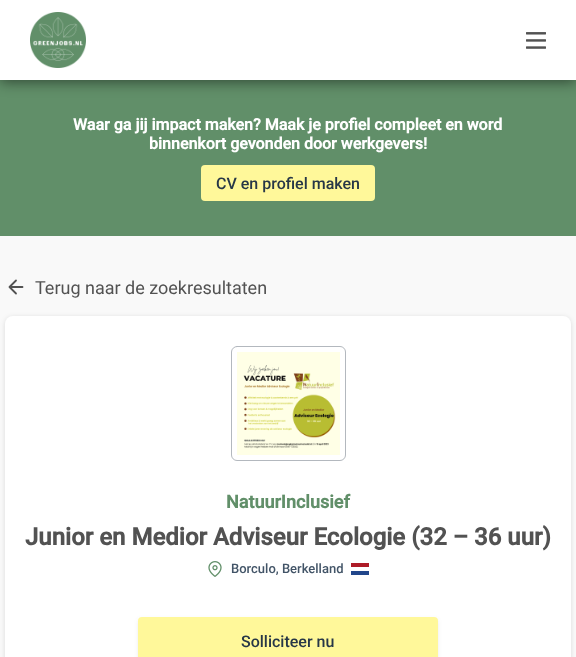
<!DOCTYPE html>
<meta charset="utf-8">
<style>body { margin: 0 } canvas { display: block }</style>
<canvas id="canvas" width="576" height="657"></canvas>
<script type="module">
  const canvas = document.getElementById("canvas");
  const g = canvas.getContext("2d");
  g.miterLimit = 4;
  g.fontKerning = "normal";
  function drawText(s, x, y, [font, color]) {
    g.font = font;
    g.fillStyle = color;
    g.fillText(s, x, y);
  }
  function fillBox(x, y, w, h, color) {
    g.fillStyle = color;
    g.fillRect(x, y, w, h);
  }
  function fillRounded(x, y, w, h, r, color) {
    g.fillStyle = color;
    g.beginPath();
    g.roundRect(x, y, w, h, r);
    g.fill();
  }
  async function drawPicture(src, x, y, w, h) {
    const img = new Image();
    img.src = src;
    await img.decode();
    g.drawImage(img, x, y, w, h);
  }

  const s1 = ["bold 16px Roboto", "#FFFFFF"];
  const s2 = ["500 16px Roboto", "#273747"];
  const s3 = ["18px Roboto", "#525252"];
  const s4 = ["bold 18px Roboto", "#618F69"];
  const s5 = ["bold 24px Roboto", "#525252"];
  const s6 = ["500 13px Roboto", "#425467"];

  fillBox(0, 0, 576, 657, "#618F69");
  g.fillStyle = "rgba(0, 0, 0, 0.5)";
  g.filter = "blur(7px)";
  g.beginPath();
  g.rect(0, 2, 576, 80);
  g.fill();
  g.filter = "none";
  fillBox(0, 0, 576, 80, "#FFFFFF");
  await drawPicture("pic1.png", 30, 12, 56, 56);
  await drawPicture("pic2.png", 526, 32, 20, 17);
  drawText("Waar ga jij impact maken? Maak je profiel compleet en word", 73, 130, s1);
  drawText("binnenkort gevonden door werkgevers!", 149, 149, s1);
  fillRounded(201, 165, 174, 36, 4, "#FFF89A");
  drawText("CV en profiel maken", 216, 189, s2);
  fillBox(0, 236, 576, 421, "#F9F9F9");
  g.beginPath();
  g.moveTo(22.5, 287);
  g.lineTo(9.5, 287);
  g.moveTo(16, 293.5);
  g.lineTo(9.5, 287);
  g.lineTo(16, 280.5);
  g.strokeStyle = "#525252";
  g.lineWidth = 1.8;
  g.lineCap = "round";
  g.lineJoin = "round";
  g.stroke();
  drawText("Terug naar de zoekresultaten", 35, 294, s3);
  g.fillStyle = "rgba(0, 0, 0, 0.12)";
  g.filter = "blur(2.5px)";
  g.beginPath();
  g.roundRect(5, 317, 566, 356, 8);
  g.fill();
  g.filter = "none";
  fillRounded(5, 316, 566, 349, 8, "#FFFFFF");
  g.beginPath();
  g.roundRect(231.5, 346.5, 114, 114, 5.5);
  g.strokeStyle = "#B3B8BE";
  g.lineWidth = 1;
  g.lineJoin = "miter";
  g.stroke();
  await drawPicture("pic3.png", 237, 352, 103, 103);
  drawText("NatuurInclusief", 226, 508, s4);
  drawText("Junior en Medior Adviseur Ecologie (32 – 36 uur)", 25, 545, s5);
  await drawPicture("pic4.png", 208, 561, 14, 16);
  drawText("Borculo, Berkelland", 231, 573, s6);
  fillBox(351, 571, 18, 4, "#21468B");
  fillBox(351, 563, 18, 4, "#AE1C28");
  g.fillStyle = "rgba(82, 82, 82, 0.1)";
  g.filter = "blur(2px)";
  g.beginPath();
  g.roundRect(138, 619, 300, 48, 4);
  g.fill();
  g.filter = "none";
  fillRounded(138, 617, 300, 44, 4, "#FFF89A");
  drawText("Solliciteer nu", 241, 647, s2);
</script>
